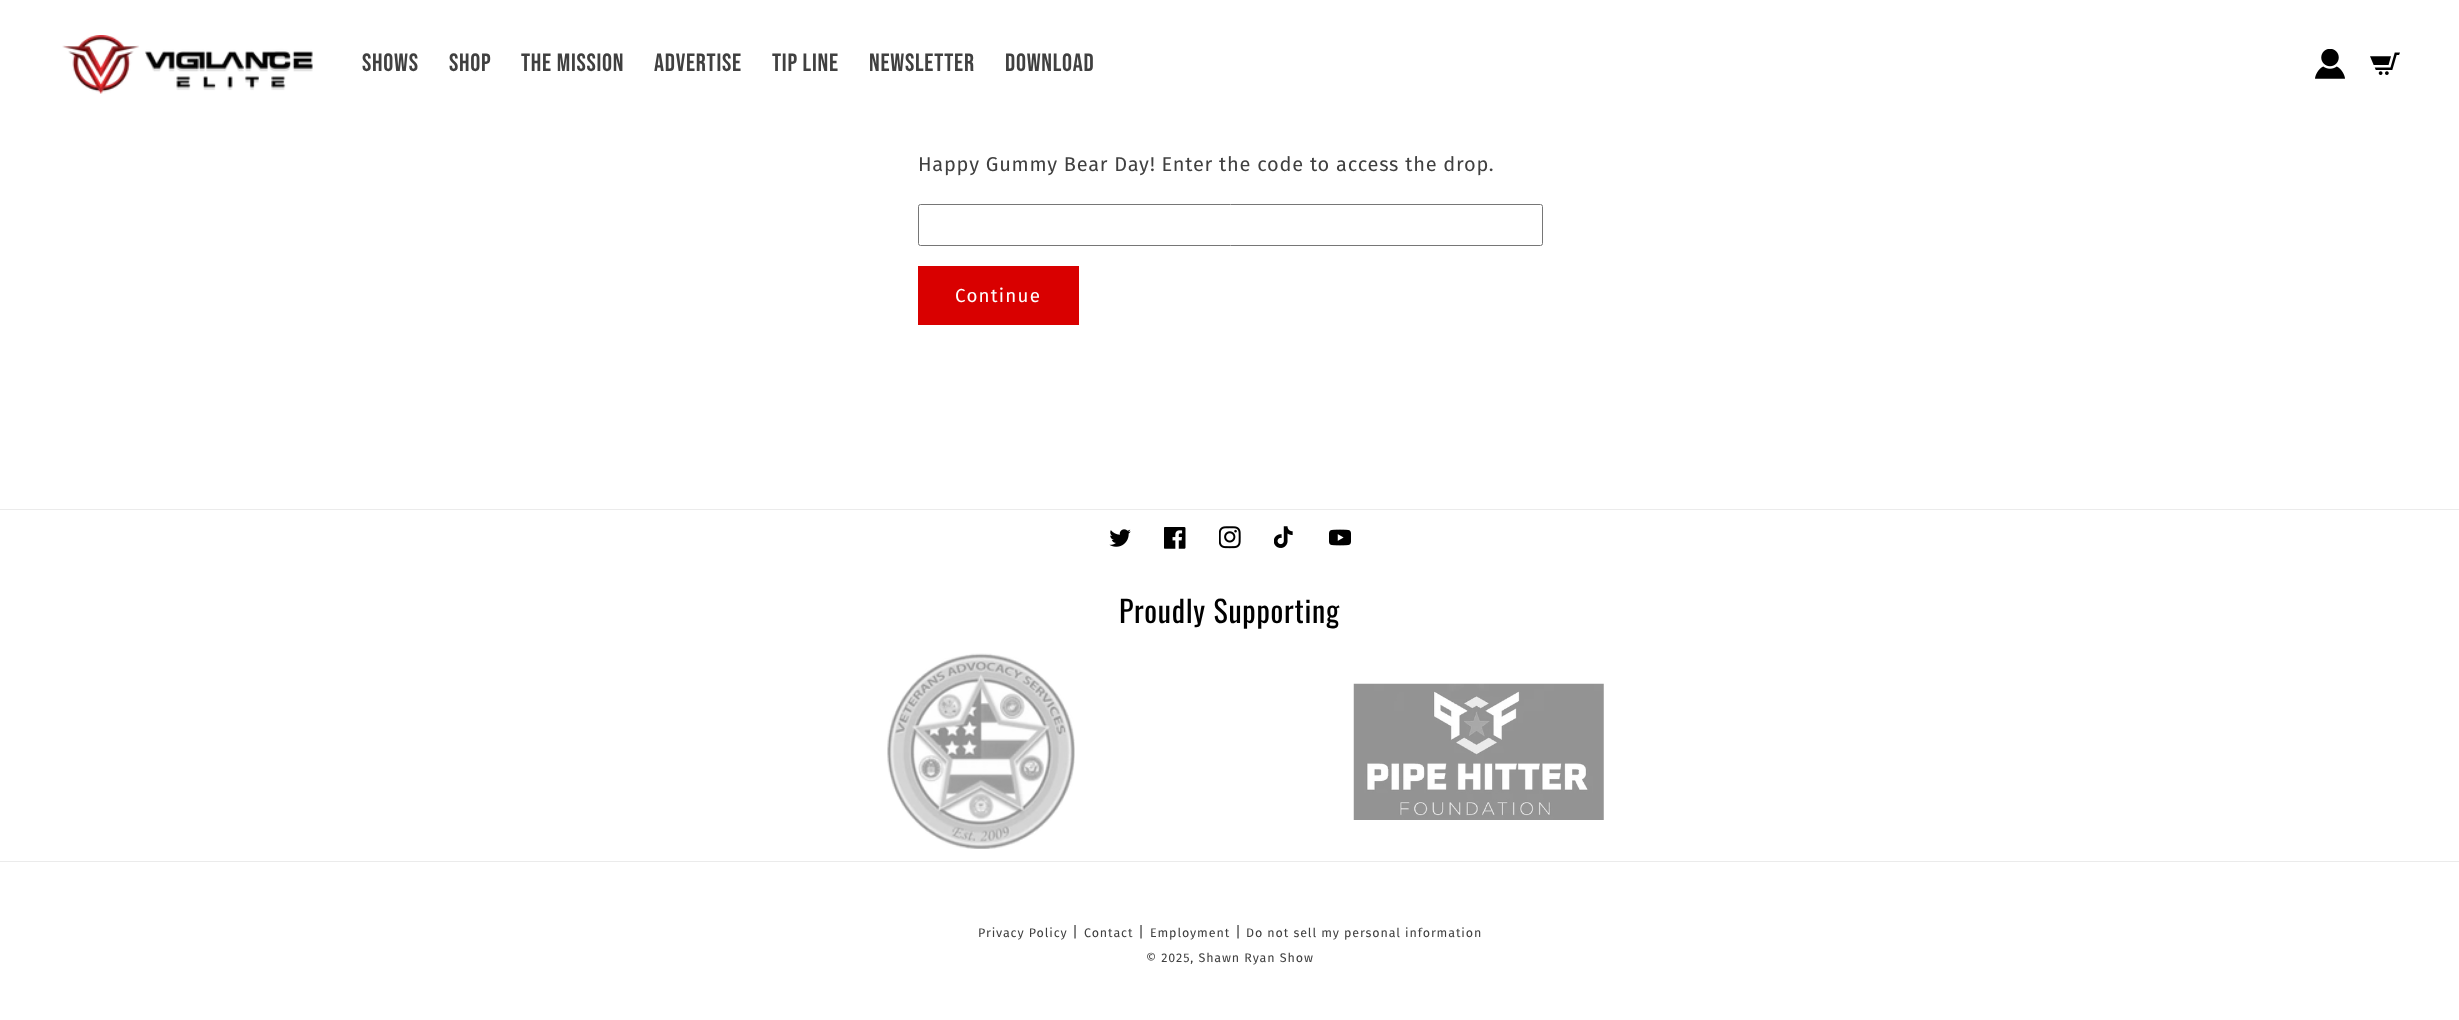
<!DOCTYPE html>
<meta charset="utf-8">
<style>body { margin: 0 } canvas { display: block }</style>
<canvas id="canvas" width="2459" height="1020"></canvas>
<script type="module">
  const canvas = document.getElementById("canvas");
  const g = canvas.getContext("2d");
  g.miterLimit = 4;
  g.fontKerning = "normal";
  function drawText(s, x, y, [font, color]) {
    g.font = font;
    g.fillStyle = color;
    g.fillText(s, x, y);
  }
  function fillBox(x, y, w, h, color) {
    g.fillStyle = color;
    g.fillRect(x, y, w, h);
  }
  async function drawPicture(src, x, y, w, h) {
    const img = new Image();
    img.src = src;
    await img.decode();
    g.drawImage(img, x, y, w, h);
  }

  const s1 = ["25px Bebas Neue", "#404040"];
  const s2 = ["20px Fira Sans", "#404040"];
  const s3 = ["18.75px Fira Sans", "#FFFFFF"];
  const s4 = ["30px Oswald", "#000000"];
  const s5 = ["12.5px Fira Sans", "#404040"];
  const s6 = ["15px Fira Sans", "#404040"];

  fillBox(0, 0, 2459, 1020, "#FFFFFF");
  await drawPicture("pic1.png", 62, 35, 251, 59);
  g.letterSpacing = "0.75px";
  drawText("SHOWS", 362, 71, s1);
  drawText("SHOP", 449, 71, s1);
  drawText("THE MISSION", 521, 71, s1);
  drawText("ADVERTISE", 654, 71, s1);
  drawText("TIP LINE", 772, 71, s1);
  drawText("NEWSLETTER", 869, 71, s1);
  drawText("DOWNLOAD", 1005, 71, s1);
  await drawPicture("pic2.png", 2315, 49, 30, 30);
  await drawPicture("pic3.png", 2370, 52, 30, 23);
  drawText("Happy Gummy Bear Day! Enter the code to access the drop.", 918, 171, s2);
  g.beginPath();
  g.roundRect(918.5, 204.5, 624, 41, 2);
  g.strokeStyle = "#767676";
  g.stroke();
  fillBox(918, 266, 161, 59, "#D90000");
  g.letterSpacing = "1.25px";
  drawText("Continue", 955, 302, s3);
  fillBox(0, 509, 2459, 1, "#EBEBEB");
  await drawPicture("pic4.png", 1109, 529, 22, 18);
  await drawPicture("pic5.png", 1164, 527, 22, 22);
  await drawPicture("pic6.png", 1219, 526, 22, 23);
  await drawPicture("pic7.png", 1274, 526, 19, 22);
  await drawPicture("pic8.png", 1329, 529, 22, 17);
  g.letterSpacing = "0.75px";
  drawText("Proudly Supporting", 1119, 623, s4);
  await drawPicture("pic9.png", 887, 653, 188, 196);
  await drawPicture("pic10.png", 1353, 683, 251, 137);
  fillBox(0, 861, 2459, 1, "#EBEBEB");
  g.letterSpacing = "0.9px";
  drawText("Privacy Policy", 978, 937, s5);
  drawText("|", 1072, 937, s6);
  drawText("Contact", 1084, 937, s5);
  drawText("|", 1138, 937, s6);
  drawText("Employment", 1150, 937, s5);
  drawText("|", 1235, 937, s6);
  drawText("Do not sell my personal information", 1246, 937, s5);
  drawText("© 2025, Shawn Ryan Show", 1146, 962, s5);
</script>
